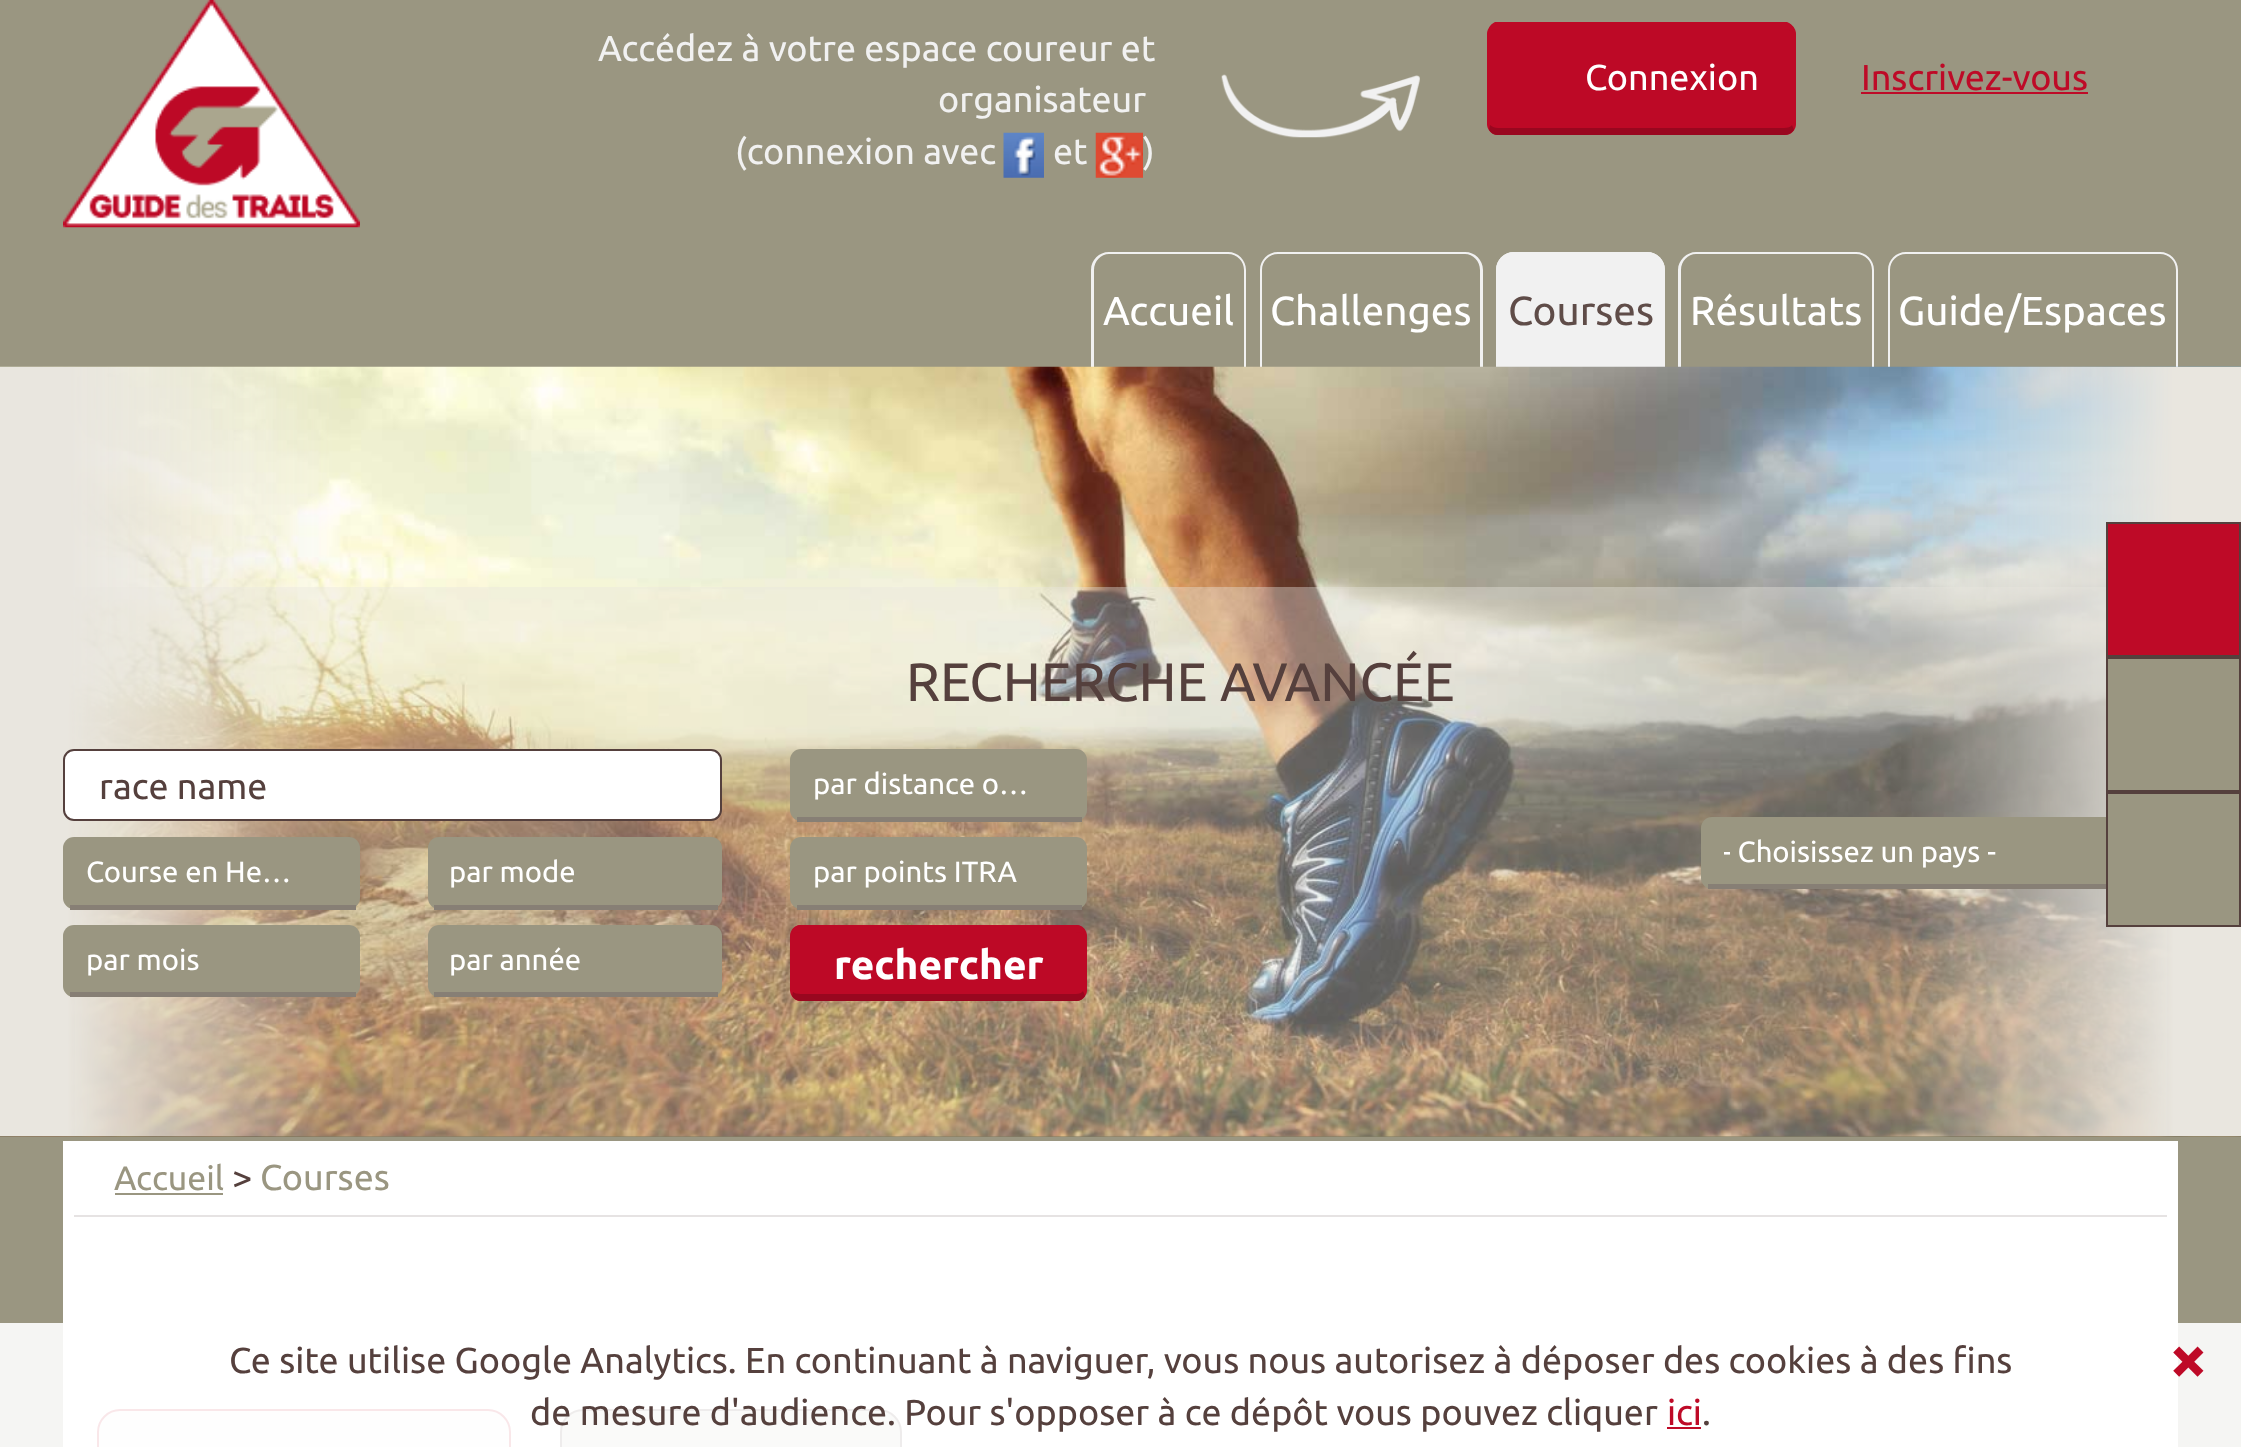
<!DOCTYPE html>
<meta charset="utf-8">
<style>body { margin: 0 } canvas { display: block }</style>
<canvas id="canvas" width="2241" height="1447"></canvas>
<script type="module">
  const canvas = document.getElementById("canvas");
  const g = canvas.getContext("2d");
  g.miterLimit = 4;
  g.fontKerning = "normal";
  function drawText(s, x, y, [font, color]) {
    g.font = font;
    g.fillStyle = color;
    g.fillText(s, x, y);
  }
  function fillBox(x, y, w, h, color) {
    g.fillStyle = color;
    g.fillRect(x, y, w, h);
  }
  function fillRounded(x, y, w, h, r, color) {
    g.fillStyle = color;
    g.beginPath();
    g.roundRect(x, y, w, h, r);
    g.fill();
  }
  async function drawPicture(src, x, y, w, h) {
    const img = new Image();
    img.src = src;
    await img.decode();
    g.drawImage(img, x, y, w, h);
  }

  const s1 = ["36px Ubuntu", "#F1F1F1"];
  const s2 = ["36px Ubuntu", "#FFFFFF"];
  const s3 = ["36px Ubuntu", "#BE0A27"];
  const s4 = ["40.5px Ubuntu", "#FFFFFF"];
  const s5 = ["40.5px Ubuntu", "#5F4C48"];
  const s6 = ["54px Ubuntu", "#55403D"];
  const s7 = ["36px Ubuntu", "#55403D"];
  const s8 = ["29.25px Ubuntu", "#FFFFFF"];
  const s9 = ["bold 40.5px Ubuntu", "#FFFFFF"];
  const s10 = ["34px Ubuntu", "#9A9681"];
  const s11 = ["36px Ubuntu", "#9A9681"];
  const s12 = ["bold 68px Ubuntu", "#BE0A27"];

  fillBox(0, 0, 2241, 1447, "#9A9681");
  await drawPicture("pic1.png", 63, 0, 297, 228);
  drawText("Accédez à votre espace coureur et", 598, 61, s1);
  drawText("organisateur", 938, 112, s1);
  drawText("(connexion avec", 735, 164, s1);
  await drawPicture("pic2.png", 1003, 132, 41, 46);
  drawText("et", 1053, 164, s1);
  await drawPicture("pic3.png", 1095, 132, 48, 46);
  drawText(")", 1143, 164, s1);
  await drawPicture("pic4.png", 1221, 74, 199, 64);
  fillRounded(1487, 23, 309, 112, 11, "#BD0926");
  g.beginPath();
  g.moveTo(1498, 29);
  g.bezierCurveTo(1495, 29, 1492, 30, 1490, 32);
  g.lineTo(1489, 28);
  g.bezierCurveTo(1490, 25, 1493, 23, 1495, 22);
  g.lineTo(1787, 22);
  g.bezierCurveTo(1790, 23, 1792, 25, 1794, 28);
  g.lineTo(1792, 32);
  g.bezierCurveTo(1791, 30, 1788, 29, 1784, 29);
  g.closePath();
  g.fill();
  g.fillStyle = "#99071F";
  g.beginPath();
  g.moveTo(1498, 135);
  g.lineTo(1784, 135);
  g.bezierCurveTo(1788, 135, 1792, 133, 1794, 130);
  g.lineTo(1792, 125);
  g.bezierCurveTo(1791, 127, 1788, 128, 1784, 128);
  g.lineTo(1498, 128);
  g.bezierCurveTo(1495, 128, 1492, 127, 1490, 125);
  g.lineTo(1489, 130);
  g.bezierCurveTo(1491, 133, 1494, 135, 1498, 135);
  g.closePath();
  g.fill();
  drawText("Connexion", 1585, 90, s2);
  drawText("Inscrivez-vous", 1861, 90, s3);
  fillBox(1861, 92, 227, 2, "#BE0A27");
  g.fillStyle = "#F1F1F1";
  g.beginPath();
  g.moveTo(1109, 252);
  g.lineTo(1228, 252);
  g.bezierCurveTo(1238, 252, 1246, 260, 1246, 270);
  g.lineTo(1246, 367);
  g.lineTo(1091, 367);
  g.lineTo(1091, 270);
  g.bezierCurveTo(1091, 260, 1099, 252, 1109, 252);
  g.closePath();
  g.moveTo(1109, 254);
  g.lineTo(1228, 254);
  g.bezierCurveTo(1237, 254, 1244, 261, 1244, 270);
  g.lineTo(1244, 367);
  g.lineTo(1094, 367);
  g.lineTo(1094, 270);
  g.bezierCurveTo(1094, 261, 1101, 254, 1109, 254);
  g.closePath();
  g.fill("evenodd");
  drawText("Accueil", 1103, 325, s4);
  g.fillStyle = "#F1F1F1";
  g.beginPath();
  g.moveTo(1278, 252);
  g.lineTo(1465, 252);
  g.bezierCurveTo(1475, 252, 1483, 260, 1483, 270);
  g.lineTo(1483, 367);
  g.lineTo(1260, 367);
  g.lineTo(1260, 270);
  g.bezierCurveTo(1260, 260, 1268, 252, 1278, 252);
  g.closePath();
  g.moveTo(1278, 254);
  g.lineTo(1465, 254);
  g.bezierCurveTo(1473, 254, 1480, 261, 1480, 270);
  g.lineTo(1480, 367);
  g.lineTo(1262, 367);
  g.lineTo(1262, 270);
  g.bezierCurveTo(1262, 261, 1269, 254, 1278, 254);
  g.closePath();
  g.fill("evenodd");
  drawText("Challenges", 1270, 325, s4);
  g.fillStyle = "#F1F1F1";
  g.beginPath();
  g.roundRect(1496, 252, 169, 115, [18, 18, 0, 0]);
  g.fill();
  g.beginPath();
  g.moveTo(1514, 252);
  g.lineTo(1647, 252);
  g.bezierCurveTo(1657, 252, 1665, 260, 1665, 270);
  g.lineTo(1665, 367);
  g.lineTo(1496, 367);
  g.lineTo(1496, 270);
  g.bezierCurveTo(1496, 260, 1504, 252, 1514, 252);
  g.closePath();
  g.moveTo(1514, 254);
  g.lineTo(1647, 254);
  g.bezierCurveTo(1656, 254, 1663, 261, 1663, 270);
  g.lineTo(1663, 367);
  g.lineTo(1498, 367);
  g.lineTo(1498, 270);
  g.bezierCurveTo(1498, 261, 1506, 254, 1514, 254);
  g.closePath();
  g.fill("evenodd");
  drawText("Courses", 1508, 325, s5);
  g.fillStyle = "#F1F1F1";
  g.beginPath();
  g.moveTo(1696, 252);
  g.lineTo(1856, 252);
  g.bezierCurveTo(1866, 252, 1874, 260, 1874, 270);
  g.lineTo(1874, 367);
  g.lineTo(1678, 367);
  g.lineTo(1678, 270);
  g.bezierCurveTo(1678, 260, 1687, 252, 1696, 252);
  g.closePath();
  g.moveTo(1696, 254);
  g.lineTo(1856, 254);
  g.bezierCurveTo(1865, 254, 1872, 261, 1872, 270);
  g.lineTo(1872, 367);
  g.lineTo(1681, 367);
  g.lineTo(1681, 270);
  g.bezierCurveTo(1681, 261, 1688, 254, 1696, 254);
  g.closePath();
  g.fill("evenodd");
  drawText("Résultats", 1690, 325, s4);
  g.fillStyle = "#F1F1F1";
  g.beginPath();
  g.moveTo(1906, 252);
  g.lineTo(2160, 252);
  g.bezierCurveTo(2170, 252, 2178, 260, 2178, 270);
  g.lineTo(2178, 367);
  g.lineTo(1888, 367);
  g.lineTo(1888, 270);
  g.bezierCurveTo(1888, 260, 1896, 252, 1906, 252);
  g.closePath();
  g.moveTo(1906, 254);
  g.lineTo(2160, 254);
  g.bezierCurveTo(2169, 254, 2176, 261, 2176, 270);
  g.lineTo(2176, 367);
  g.lineTo(1890, 367);
  g.lineTo(1890, 270);
  g.bezierCurveTo(1890, 261, 1897, 254, 1906, 254);
  g.closePath();
  g.fill("evenodd");
  drawText("Guide/Espaces", 1898, 325, s4);
  await drawPicture("pic5.png", 0, 366, 2241, 771);
  fillBox(75, 587, 2092, 549, "rgba(233, 230, 223, 0.4)");
  drawText("RECHERCHE AVANCÉE", 906, 701, s6);
  g.fillStyle = "#FFFFFF";
  g.beginPath();
  g.roundRect(64, 750, 657, 70, 10);
  g.fill();
  g.strokeStyle = "#55403D";
  g.lineWidth = 2;
  g.stroke();
  drawText("race name", 99, 799, s7);
  fillRounded(790, 749, 297, 72, 11, "#9A9681");
  fillBox(797, 817, 285, 5, "#877F75");
  drawText("par distance o…", 813, 794, s8);
  fillRounded(63, 837, 297, 72, 11, "#9A9681");
  fillBox(70, 905, 286, 5, "#877F75");
  drawText("Course en He…", 86, 882, s8);
  fillRounded(428, 837, 294, 72, 11, "#9A9681");
  fillBox(434, 905, 284, 5, "#877F75");
  drawText("par mode", 449, 882, s8);
  fillRounded(790, 837, 297, 72, 11, "#9A9681");
  fillBox(797, 905, 285, 5, "#877F75");
  drawText("par points ITRA", 813, 882, s8);
  fillRounded(63, 925, 297, 72, 11, "#9A9681");
  fillBox(70, 992, 286, 5, "#877F75");
  drawText("par mois", 86, 970, s8);
  fillRounded(428, 925, 294, 72, 11, "#9A9681");
  fillBox(434, 992, 284, 5, "#877F75");
  drawText("par année", 449, 970, s8);
  fillRounded(790, 925, 297, 76, 11, "#BD0926");
  g.beginPath();
  g.moveTo(801, 925);
  g.bezierCurveTo(797, 925, 794, 927, 792, 930);
  g.lineTo(793, 934);
  g.bezierCurveTo(794, 933, 797, 932, 801, 932);
  g.lineTo(1076, 932);
  g.bezierCurveTo(1079, 932, 1082, 933, 1083, 935);
  g.lineTo(1085, 930);
  g.bezierCurveTo(1083, 927, 1080, 925, 1076, 925);
  g.closePath();
  g.fill();
  g.fillStyle = "#99071F";
  g.beginPath();
  g.moveTo(1085, 996);
  g.bezierCurveTo(1083, 999, 1080, 1001, 1076, 1001);
  g.lineTo(801, 1001);
  g.bezierCurveTo(797, 1001, 794, 999, 792, 996);
  g.lineTo(793, 992);
  g.bezierCurveTo(794, 993, 797, 994, 801, 994);
  g.lineTo(1076, 994);
  g.bezierCurveTo(1079, 994, 1082, 993, 1083, 991);
  g.closePath();
  g.fill();
  drawText("rechercher", 834, 979, s9);
  fillRounded(1701, 817, 477, 72, 11, "#9A9681");
  fillBox(1708, 884, 398, 5, "#877F75");
  g.save();
  g.beginPath();
  g.rect(1724, 817, 396, 67);
  g.clip();
  drawText("- Choisissez un pays -", 1722, 862, s8);
  g.restore();
  fillBox(63, 1141, 2115, 306, "#FFFFFF");
  g.fillStyle = "#BE0A27";
  g.beginPath();
  g.rect(2107, 523, 133, 133);
  g.fill();
  g.stroke();
  g.fillStyle = "#9A9681";
  g.beginPath();
  g.rect(2107, 658, 133, 133);
  g.fill();
  g.stroke();
  g.beginPath();
  g.rect(2107, 793, 133, 133);
  g.fill();
  g.stroke();
  g.fillStyle = "#F1F1F1";
  g.beginPath();
  g.moveTo(120, 1410);
  g.lineTo(488, 1410);
  g.bezierCurveTo(500, 1410, 510, 1420, 510, 1432);
  g.lineTo(510, 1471);
  g.lineTo(98, 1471);
  g.lineTo(98, 1432);
  g.bezierCurveTo(98, 1420, 108, 1410, 120, 1410);
  g.closePath();
  g.fill();
  g.strokeStyle = "#BE0A27";
  g.stroke();
  g.fillStyle = "#C6C5BD";
  g.beginPath();
  g.moveTo(583, 1410);
  g.lineTo(879, 1410);
  g.bezierCurveTo(891, 1410, 901, 1420, 901, 1432);
  g.lineTo(901, 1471);
  g.lineTo(561, 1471);
  g.lineTo(561, 1432);
  g.bezierCurveTo(561, 1420, 571, 1410, 583, 1410);
  g.closePath();
  g.fill();
  g.strokeStyle = "#55403D";
  g.stroke();
  fillBox(74, 1215, 2093, 2, "#E6E3E3");
  drawText("Accueil", 114, 1190, s10);
  fillBox(115, 1193, 108, 2, "#9A9681");
  drawText(">", 232, 1190, s7);
  drawText("Courses", 260, 1190, s11);
  fillBox(0, 1323, 2241, 124, "rgba(255, 255, 255, 0.9)");
  drawText("Ce site utilise Google Analytics. En continuant à naviguer, vous nous autorisez à déposer des cookies à des fins", 229, 1373, s7);
  drawText("de mesure d'audience. Pour s'opposer à ce dépôt vous pouvez cliquer", 530, 1425, s7);
  drawText("ici", 1667, 1425, s3);
  fillBox(1667, 1427, 34, 2, "#BE0A27");
  drawText(".", 1702, 1425, s7);
  drawText("×", 2169, 1382, s12);
</script>
